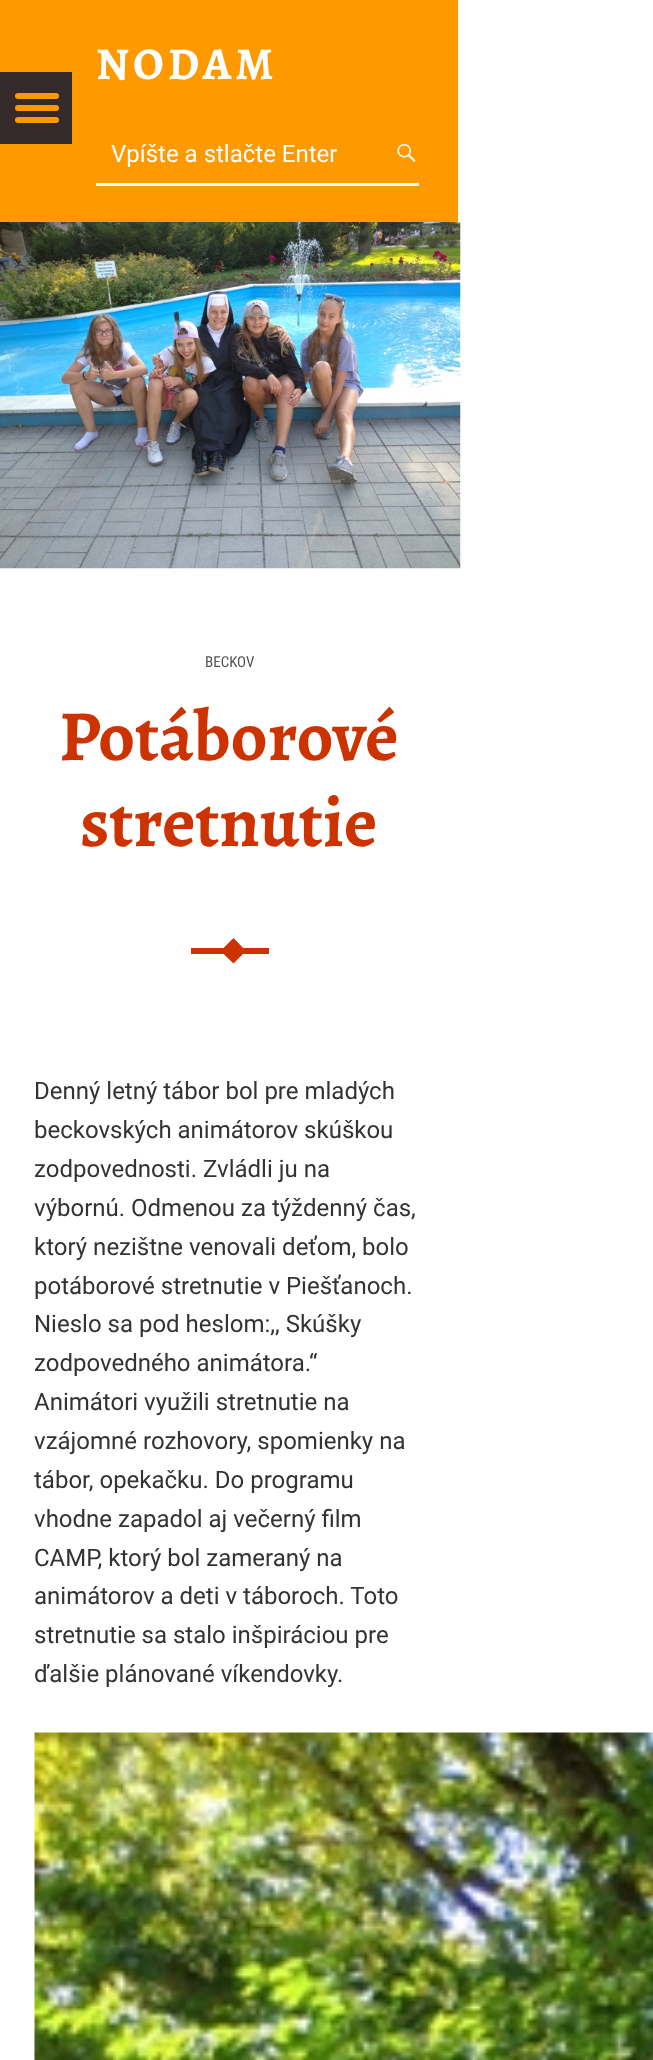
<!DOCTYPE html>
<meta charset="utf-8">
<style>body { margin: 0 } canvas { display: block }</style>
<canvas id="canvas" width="653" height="2060"></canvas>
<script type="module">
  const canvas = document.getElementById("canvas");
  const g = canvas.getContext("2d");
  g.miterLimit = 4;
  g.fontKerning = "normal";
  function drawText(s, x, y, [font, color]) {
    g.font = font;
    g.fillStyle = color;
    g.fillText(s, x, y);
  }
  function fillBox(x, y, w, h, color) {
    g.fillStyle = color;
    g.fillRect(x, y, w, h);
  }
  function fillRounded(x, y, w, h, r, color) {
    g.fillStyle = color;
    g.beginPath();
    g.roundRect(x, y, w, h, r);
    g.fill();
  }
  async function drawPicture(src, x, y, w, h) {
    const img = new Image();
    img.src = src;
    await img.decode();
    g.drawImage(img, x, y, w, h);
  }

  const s1 = ["bold 45.5px Alegreya", "#FFFFFF"];
  const s2 = ["24px Roboto", "#FFFFFF"];
  const s3 = ["15px Roboto Condensed", "#525252"];
  const s4 = ["bold 72px Alegreya", "#CC3300"];
  const s5 = ["24px Roboto", "#333333"];

  fillBox(0, 0, 653, 2060, "#FFFFFF");
  fillBox(0, 0, 458, 222, "#FF9900");
  g.letterSpacing = "4px";
  drawText("NODAM", 96, 79, s1);
  fillBox(0, 72, 72, 72, "#352A2A");
  fillRounded(15, 93, 44, 6, 3, "#FF9900");
  fillRounded(15, 105, 44, 6, 3, "#FF9900");
  fillRounded(15, 117, 44, 6, 3, "#FF9900");
  fillBox(96, 183, 323, 3, "#FFFFFF");
  g.letterSpacing = "0px";
  drawText("Vpíšte a stlačte Enter", 111, 162, s2);
  await drawPicture("pic1.png", 397, 144, 19, 18);
  await drawPicture("pic2.png", 0, 222, 461, 347);
  drawText("BECKOV", 205, 667, s3);
  drawText("Potáborové", 59, 760, s4);
  drawText("stretnutie", 80, 846, s4);
  fillBox(191, 948, 78, 6, "#CC3300");
  g.beginPath();
  g.moveTo(233.5, 938);
  g.lineTo(246, 951);
  g.lineTo(233.5, 963.5);
  g.lineTo(220.5, 951);
  g.closePath();
  g.fill();
  drawText("Denný letný tábor bol pre mladých", 34, 1099, s5);
  drawText("beckovských animátorov skúškou", 34, 1138, s5);
  drawText("zodpovednosti. Zvládli ju na", 34, 1177, s5);
  drawText("výbornú. Odmenou za týždenný čas,", 34, 1216, s5);
  drawText("ktorý nezištne venovali deťom, bolo", 34, 1255, s5);
  drawText("potáborové stretnutie v Piešťanoch.", 34, 1294, s5);
  drawText("Nieslo sa pod heslom:,, Skúšky", 34, 1332, s5);
  drawText("zodpovedného animátora.“", 34, 1371, s5);
  drawText("Animátori využili stretnutie na", 34, 1410, s5);
  drawText("vzájomné rozhovory, spomienky na", 34, 1449, s5);
  drawText("tábor, opekačku. Do programu", 34, 1488, s5);
  drawText("vhodne zapadol aj večerný film", 34, 1527, s5);
  drawText("CAMP, ktorý bol zameraný na", 34, 1566, s5);
  drawText("animátorov a deti v táboroch. Toto", 34, 1604, s5);
  drawText("stretnutie sa stalo inšpiráciou pre", 34, 1643, s5);
  drawText("ďalšie plánované víkendovky.", 34, 1682, s5);
  await drawPicture("pic3.png", 34, 1732, 619, 328);
</script>
